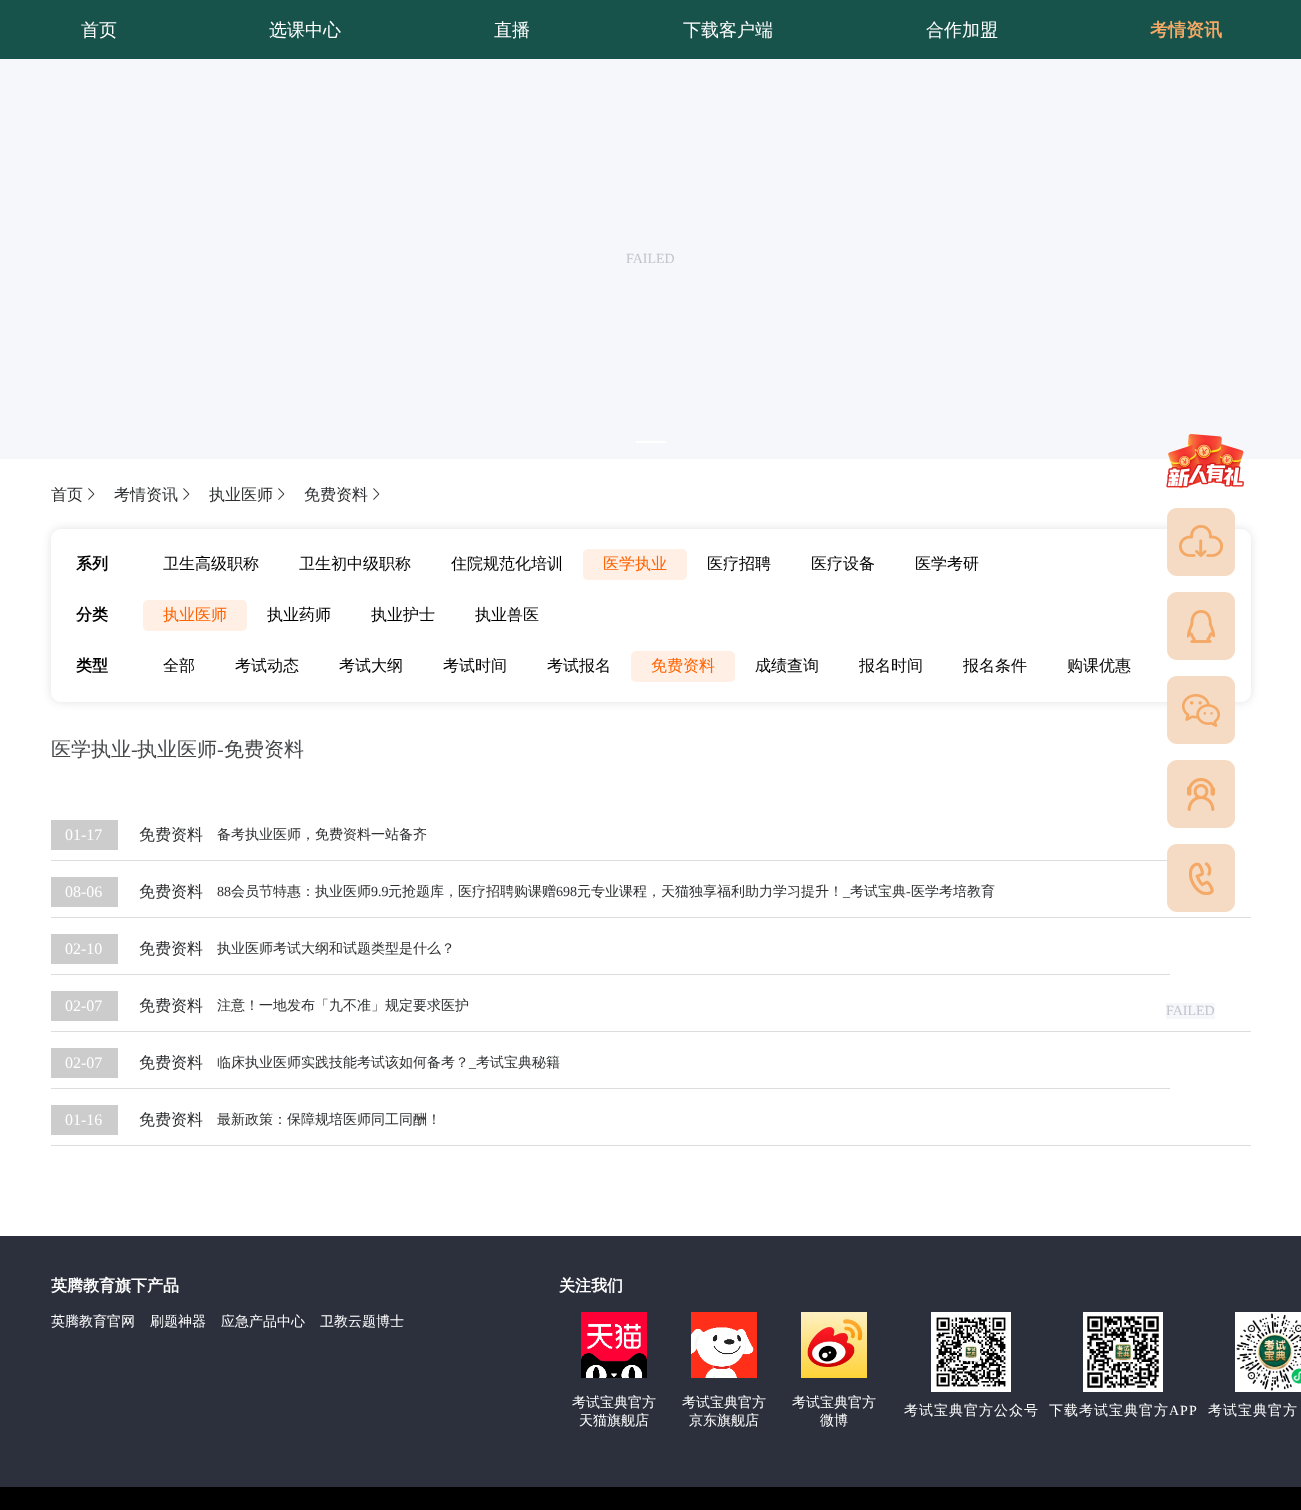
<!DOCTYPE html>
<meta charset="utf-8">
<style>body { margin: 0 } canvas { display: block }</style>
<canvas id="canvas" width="1301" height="1510"></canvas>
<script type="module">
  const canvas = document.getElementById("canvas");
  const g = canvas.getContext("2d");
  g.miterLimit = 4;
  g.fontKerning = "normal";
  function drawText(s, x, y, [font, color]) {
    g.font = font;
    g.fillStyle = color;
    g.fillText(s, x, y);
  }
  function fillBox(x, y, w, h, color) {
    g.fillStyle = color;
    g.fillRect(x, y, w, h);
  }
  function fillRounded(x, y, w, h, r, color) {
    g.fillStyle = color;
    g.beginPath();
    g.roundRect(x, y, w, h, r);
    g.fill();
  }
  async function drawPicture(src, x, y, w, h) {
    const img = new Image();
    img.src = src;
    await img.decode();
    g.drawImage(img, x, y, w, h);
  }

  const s1 = ["500 18px WenQuanYi Zen Hei", "#FFFFFF"];
  const s2 = ["bold 18px WenQuanYi Zen Hei", "#F4AA66"];
  const s3 = ["14px Liberation Serif", "#C0C4CC"];
  const s4 = ["500 16px WenQuanYi Zen Hei", "#2E2F31"];
  const s5 = ["bold 16px WenQuanYi Zen Hei", "#000000"];
  const s6 = ["500 16px WenQuanYi Zen Hei", "#000000"];
  const s7 = ["500 16px WenQuanYi Zen Hei", "#FF6200"];
  const s8 = ["500 20px WenQuanYi Zen Hei", "#47484A"];
  const s9 = ["20px Liberation Serif", "#47484A"];
  const s10 = ["16px Liberation Serif", "#FFFFFF"];
  const s11 = ["500 14px WenQuanYi Zen Hei", "#2E2F31"];
  const s12 = ["14px Liberation Serif", "#2E2F31"];
  const s13 = ["bold 16px WenQuanYi Zen Hei", "#FFFFFF"];
  const s14 = ["500 14px WenQuanYi Zen Hei", "#FFFFFF"];
  const s15 = ["14px Liberation Serif", "#FFFFFF"];

  fillBox(0, 0, 1301, 1510, "#FFFFFF");
  fillBox(0, 0, 1301, 59, "#17534B");
  drawText("首页", 81, 36, s1);
  drawText("选课中心", 269, 36, s1);
  drawText("直播", 494, 36, s1);
  drawText("下载客户端", 683, 36, s1);
  drawText("合作加盟", 926, 36, s1);
  drawText("考情资讯", 1150, 36, s2);
  fillBox(0, 59, 1301, 400, "#F5F7FA");
  drawText("FAILED", 626, 263, s3);
  fillBox(636, 441, 30, 2, "#FFFFFF");
  drawText("首页", 51, 500, s4);
  await drawPicture("pic1.png", 88, 488, 7, 12);
  drawText("考情资讯", 114, 500, s4);
  await drawPicture("pic1.png", 183, 488, 7, 12);
  drawText("执业医师", 209, 500, s4);
  await drawPicture("pic1.png", 278, 488, 7, 12);
  drawText("免费资料", 304, 500, s4);
  await drawPicture("pic1.png", 373, 488, 7, 12);
  g.save();
  g.beginPath();
  g.moveTo(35, 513);
  g.lineTo(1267, 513);
  g.lineTo(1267, 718);
  g.lineTo(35, 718);
  g.closePath();
  g.moveTo(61, 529);
  g.lineTo(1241, 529);
  g.bezierCurveTo(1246.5, 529, 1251, 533.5, 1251, 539);
  g.lineTo(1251, 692);
  g.bezierCurveTo(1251, 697.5, 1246.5, 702, 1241, 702);
  g.lineTo(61, 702);
  g.bezierCurveTo(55.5, 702, 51, 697.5, 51, 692);
  g.lineTo(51, 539);
  g.bezierCurveTo(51, 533.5, 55.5, 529, 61, 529);
  g.closePath();
  g.clip("evenodd");
  g.fillStyle = "#E1E1E1";
  g.filter = "blur(5px)";
  g.beginPath();
  g.roundRect(51, 529, 1200, 173, 10);
  g.fill();
  g.filter = "none";
  g.restore();
  drawText("系列", 76, 569, s5);
  drawText("卫生高级职称", 163, 569, s6);
  drawText("卫生初中级职称", 299, 569, s6);
  drawText("住院规范化培训", 451, 569, s6);
  fillRounded(583, 549, 104, 31, 5, "#FFEFE5");
  drawText("医学执业", 603, 569, s7);
  drawText("医疗招聘", 707, 569, s6);
  drawText("医疗设备", 811, 569, s6);
  drawText("医学考研", 915, 569, s6);
  drawText("分类", 76, 620, s5);
  fillRounded(143, 600, 104, 31, 5, "#FFEFE5");
  drawText("执业医师", 163, 620, s7);
  drawText("执业药师", 267, 620, s6);
  drawText("执业护士", 371, 620, s6);
  drawText("执业兽医", 475, 620, s6);
  drawText("类型", 76, 671, s5);
  drawText("全部", 163, 671, s6);
  drawText("考试动态", 235, 671, s6);
  drawText("考试大纲", 339, 671, s6);
  drawText("考试时间", 443, 671, s6);
  drawText("考试报名", 547, 671, s6);
  fillRounded(631, 651, 104, 31, 5, "#FFEFE5");
  drawText("免费资料", 651, 671, s7);
  drawText("成绩查询", 755, 671, s6);
  drawText("报名时间", 859, 671, s6);
  drawText("报名条件", 963, 671, s6);
  drawText("购课优惠", 1067, 671, s6);
  drawText("医学执业", 51, 756, s8);
  drawText("-", 131, 756, s9);
  drawText("执业医师", 137, 756, s8);
  drawText("-", 217, 756, s9);
  drawText("免费资料", 224, 756, s8);
  fillBox(51, 860, 1119, 1, "#DDDDDD");
  fillBox(51, 820, 67, 30, "#CCCCCC");
  drawText("01-17", 65, 840, s10);
  drawText("免费资料", 139, 840, s4);
  drawText("备考执业医师，免费资料一站备齐", 217, 839, s11);
  fillBox(51, 917, 1200, 1, "#DDDDDD");
  fillBox(51, 877, 67, 30, "#CCCCCC");
  drawText("08-06", 65, 897, s10);
  drawText("免费资料", 139, 897, s4);
  drawText("88", 217, 896, s12);
  drawText("会员节特惠：执业医师", 231, 896, s11);
  drawText("9.9", 371, 896, s12);
  drawText("元抢题库，医疗招聘购课赠", 388, 896, s11);
  drawText("698", 556, 896, s12);
  drawText("元专业课程，天猫独享福利助力学习提升！", 577, 896, s11);
  drawText("_", 843, 896, s12);
  drawText("考试宝典", 850, 896, s11);
  drawText("-", 906, 896, s12);
  drawText("医学考培教育", 911, 896, s11);
  fillBox(51, 974, 1119, 1, "#DDDDDD");
  fillBox(51, 934, 67, 30, "#CCCCCC");
  drawText("02-10", 65, 954, s10);
  drawText("免费资料", 139, 954, s4);
  drawText("执业医师考试大纲和试题类型是什么？", 217, 953, s11);
  fillBox(51, 1031, 1200, 1, "#DDDDDD");
  fillBox(51, 991, 67, 30, "#CCCCCC");
  drawText("02-07", 65, 1011, s10);
  drawText("免费资料", 139, 1011, s4);
  drawText("注意！一地发布「九不准」规定要求医护", 217, 1010, s11);
  fillBox(51, 1088, 1119, 1, "#DDDDDD");
  fillBox(51, 1048, 67, 30, "#CCCCCC");
  drawText("02-07", 65, 1068, s10);
  drawText("免费资料", 139, 1068, s4);
  drawText("临床执业医师实践技能考试该如何备考？", 217, 1067, s11);
  drawText("_", 469, 1067, s12);
  drawText("考试宝典秘籍", 476, 1067, s11);
  fillBox(51, 1145, 1200, 1, "#DDDDDD");
  fillBox(51, 1105, 67, 30, "#CCCCCC");
  drawText("01-16", 65, 1125, s10);
  drawText("免费资料", 139, 1125, s4);
  drawText("最新政策：保障规培医师同工同酬！", 217, 1124, s11);
  await drawPicture("pic2.png", 1166, 434, 78, 55);
  await drawPicture("pic3.png", 1167, 508, 68, 68);
  await drawPicture("pic4.png", 1167, 592, 68, 68);
  await drawPicture("pic5.png", 1167, 676, 68, 68);
  await drawPicture("pic6.png", 1167, 760, 68, 68);
  await drawPicture("pic7.png", 1167, 844, 68, 68);
  fillBox(1166, 1003, 49, 16, "#F5F7FA");
  drawText("FAILED", 1166, 1015, s3);
  fillBox(0, 1236, 1301, 251, "#2C2F3C");
  drawText("英腾教育旗下产品", 51, 1291, s13);
  drawText("英腾教育官网", 51, 1326, s14);
  drawText("刷题神器", 150, 1326, s14);
  drawText("应急产品中心", 221, 1326, s14);
  drawText("卫教云题博士", 320, 1326, s14);
  drawText("关注我们", 559, 1291, s13);
  await drawPicture("pic8.png", 581, 1312, 66, 66);
  drawText("考试宝典官方", 572, 1407, s14);
  drawText("天猫旗舰店", 579, 1425, s14);
  await drawPicture("pic9.png", 691, 1312, 66, 66);
  drawText("考试宝典官方", 682, 1407, s14);
  drawText("京东旗舰店", 689, 1425, s14);
  await drawPicture("pic10.png", 801, 1312, 66, 66);
  drawText("考试宝典官方", 792, 1407, s14);
  drawText("微博", 820, 1425, s14);
  await drawPicture("pic11.png", 931, 1312, 80, 80);
  g.letterSpacing = "1px";
  drawText("考试宝典官方公众号", 904, 1415, s14);
  await drawPicture("pic12.png", 1083, 1312, 80, 80);
  drawText("下载考试宝典官方", 1049, 1415, s14);
  drawText("APP", 1169, 1415, s15);
  await drawPicture("pic13.png", 1235, 1312, 66, 80);
  drawText("考试宝典官方", 1208, 1415, s14);
  fillBox(0, 1487, 1301, 23, "#000000");
</script>
